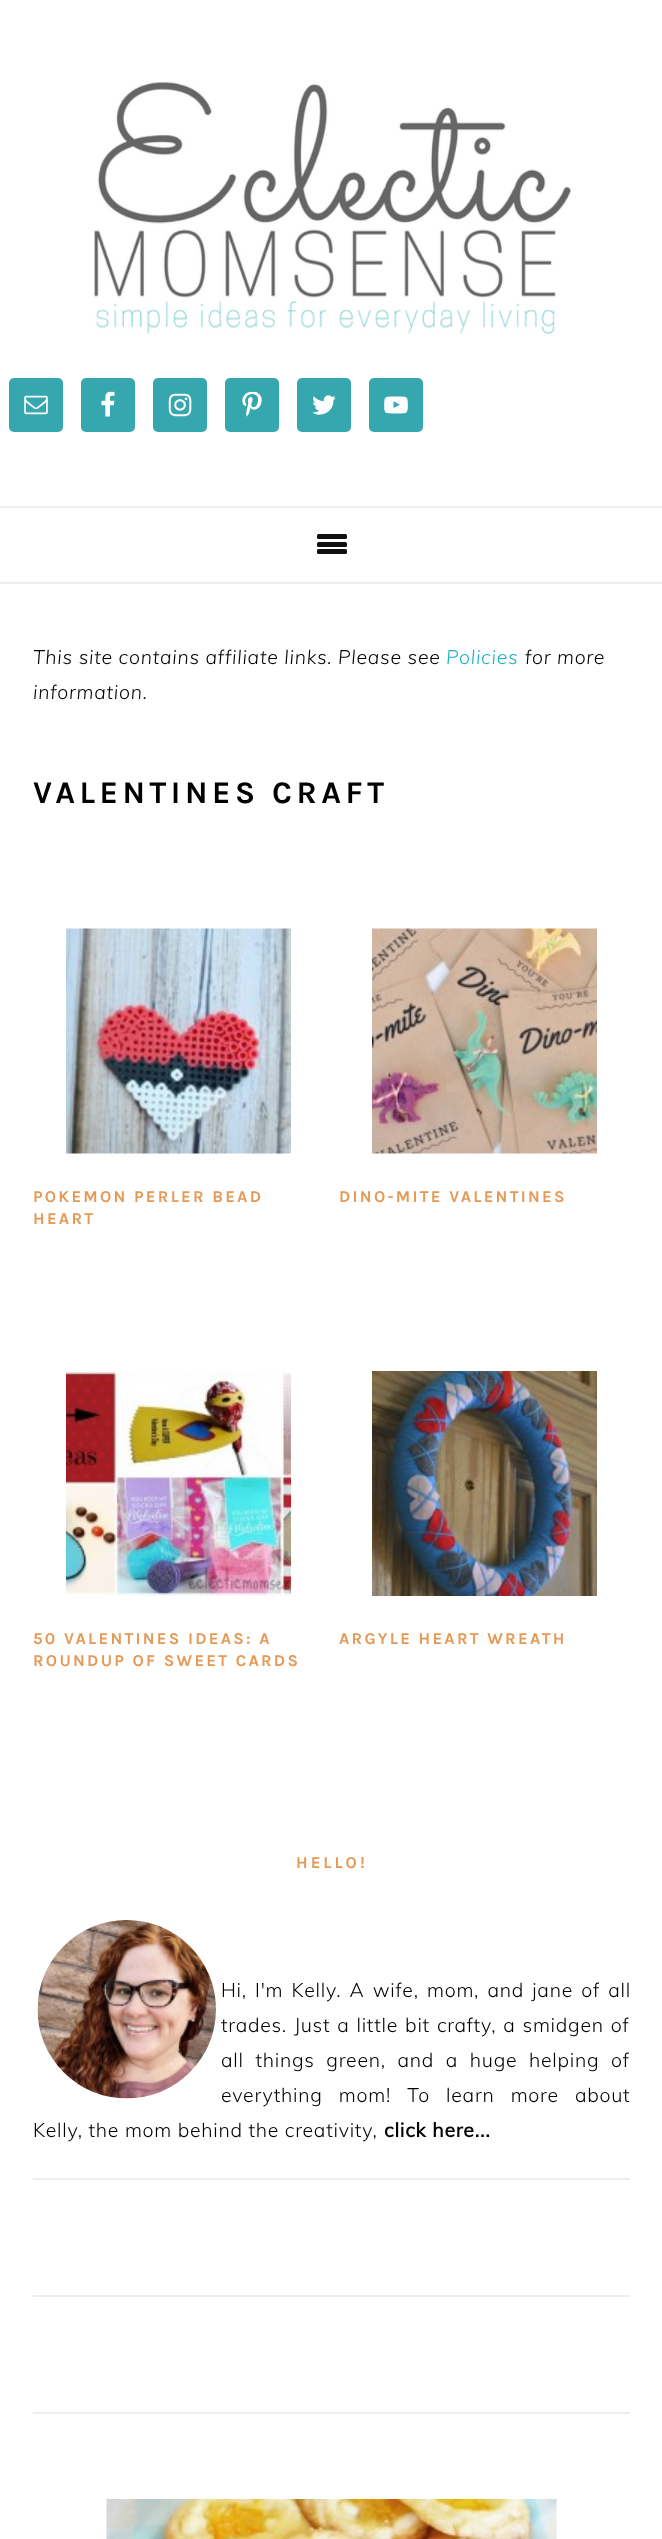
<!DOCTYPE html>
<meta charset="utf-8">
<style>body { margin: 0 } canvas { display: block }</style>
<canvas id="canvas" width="662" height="2539"></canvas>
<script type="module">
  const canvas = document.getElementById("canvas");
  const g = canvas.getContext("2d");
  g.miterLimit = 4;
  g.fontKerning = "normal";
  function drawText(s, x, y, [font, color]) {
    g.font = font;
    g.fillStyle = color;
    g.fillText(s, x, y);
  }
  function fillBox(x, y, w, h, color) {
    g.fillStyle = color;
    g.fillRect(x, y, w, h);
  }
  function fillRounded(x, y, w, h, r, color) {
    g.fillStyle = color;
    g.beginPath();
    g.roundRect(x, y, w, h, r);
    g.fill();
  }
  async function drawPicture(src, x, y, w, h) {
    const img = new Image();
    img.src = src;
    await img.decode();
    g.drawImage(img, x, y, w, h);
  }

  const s1 = ["italic 300 19.5px Muli", "#010101"];
  const s2 = ["italic 300 19.5px Muli", "#1CB4BC"];
  const s3 = ["bold 31.5px Karla", "#010101"];
  const s4 = ["bold 16.5px Karla", "#E59956"];
  const s5 = ["300 19.5px Muli", "#010101"];
  const s6 = ["bold 19.5px Muli", "#010101"];

  fillBox(0, 0, 662, 2539, "#FFFFFF");
  await drawPicture("pic1.png", 93, 81, 478, 254);
  fillRounded(9, 378, 54, 54, 5, "#36A7AF");
  await drawPicture("pic2.png", 24, 395, 24, 20);
  fillRounded(81, 378, 54, 54, 5, "#36A7AF");
  await drawPicture("pic3.png", 101, 391, 14, 26);
  fillRounded(153, 378, 54, 54, 5, "#36A7AF");
  await drawPicture("pic4.png", 168, 393, 24, 24);
  fillRounded(225, 378, 54, 54, 5, "#36A7AF");
  await drawPicture("pic5.png", 242, 391, 20, 26);
  fillRounded(297, 378, 54, 54, 5, "#36A7AF");
  await drawPicture("pic6.png", 312, 395, 24, 20);
  fillRounded(369, 378, 54, 54, 5, "#36A7AF");
  await drawPicture("pic7.png", 384, 396, 24, 18);
  fillBox(0, 506, 662, 2, "#EEEEEE");
  fillBox(0, 582, 662, 2, "#EEEEEE");
  fillRounded(317, 542, 30, 5, 1.5, "#101010");
  fillRounded(317, 534, 30, 5, 1.5, "#101010");
  fillRounded(317, 549, 30, 5, 1.5, "#101010");
  g.letterSpacing = "0.75px";
  drawText("This site contains affiliate links. Please see", 33, 664, s1);
  drawText("Policies", 446, 664, s2);
  drawText("for more", 525, 664, s1);
  drawText("information.", 33, 699, s1);
  g.letterSpacing = "4.5px";
  drawText("VALENTINES CRAFT", 33, 803, s3);
  await drawPicture("pic8.png", 66, 928, 225, 226);
  g.letterSpacing = "2.25px";
  drawText("POKEMON PERLER BEAD", 33, 1202, s4);
  drawText("HEART", 33, 1224, s4);
  await drawPicture("pic9.png", 372, 928, 225, 226);
  drawText("DINO-MITE VALENTINES", 339, 1202, s4);
  await drawPicture("pic10.png", 66, 1371, 225, 225);
  drawText("50 VALENTINES IDEAS: A", 33, 1644, s4);
  drawText("ROUNDUP OF SWEET CARDS", 33, 1666, s4);
  await drawPicture("pic11.png", 372, 1371, 225, 225);
  drawText("ARGYLE HEART WREATH", 339, 1644, s4);
  fillBox(33, 2178, 597, 2, "#EEEEEE");
  g.letterSpacing = "3px";
  drawText("HELLO!", 296, 1868, s4);
  await drawPicture("pic12.png", 37, 1920, 179, 179);
  g.letterSpacing = "0.75px";
  g.wordSpacing = "2.5px";
  drawText("Hi, I'm Kelly. A wife, mom, and jane of all", 221, 1997, s5);
  g.wordSpacing = "1.25px";
  drawText("trades. Just a little bit crafty, a smidgen of", 221, 2032, s5);
  g.wordSpacing = "6px";
  drawText("all things green, and a huge helping of", 221, 2067, s5);
  g.wordSpacing = "10.5px";
  drawText("everything mom! To learn more about", 221, 2102, s5);
  g.wordSpacing = "0px";
  drawText("Kelly, the mom behind the creativity,", 33, 2137, s5);
  drawText("click here...", 384, 2137, s6);
  fillBox(33, 2295, 597, 2, "#EEEEEE");
  fillBox(33, 2412, 597, 2, "#EEEEEE");
  await drawPicture("pic13.png", 106, 2499, 451, 40);
</script>
